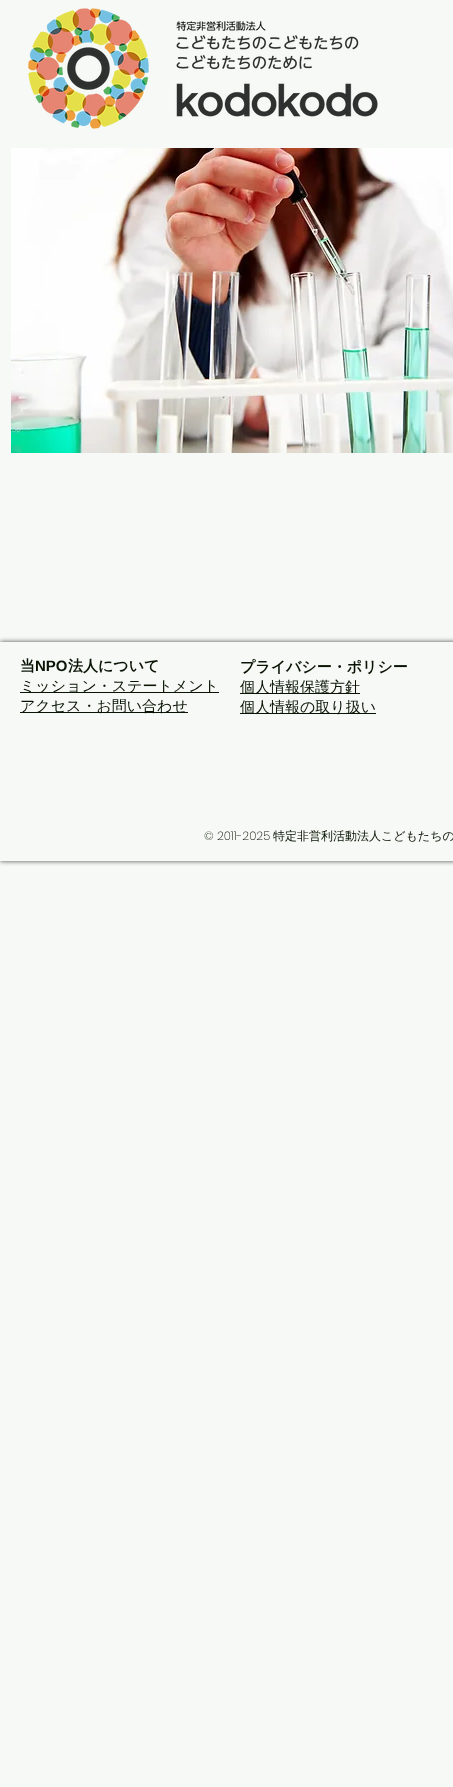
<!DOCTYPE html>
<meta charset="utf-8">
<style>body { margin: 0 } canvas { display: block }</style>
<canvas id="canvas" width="453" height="1787"></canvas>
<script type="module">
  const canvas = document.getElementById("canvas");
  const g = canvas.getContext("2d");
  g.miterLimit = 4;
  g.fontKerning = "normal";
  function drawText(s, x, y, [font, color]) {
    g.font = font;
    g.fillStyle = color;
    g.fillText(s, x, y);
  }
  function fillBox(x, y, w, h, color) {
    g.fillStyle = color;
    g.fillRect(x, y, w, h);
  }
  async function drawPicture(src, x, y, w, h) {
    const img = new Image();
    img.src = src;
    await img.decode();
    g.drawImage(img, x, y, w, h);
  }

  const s1 = ["bold 15px WenQuanYi Zen Hei", "#091405"];
  const s2 = ["bold 15px Liberation Sans", "#091405"];
  const s3 = ["500 15px WenQuanYi Zen Hei", "#091405"];
  const s4 = ["200 12px Poppins", "#091405"];
  const s5 = ["500 12px WenQuanYi Zen Hei", "#091405"];

  fillBox(0, 0, 453, 1787, "#F6F9F5");
  await drawPicture("pic1.png", 28, 8, 350, 121);
  await drawPicture("pic2.png", 11, 148, 442, 305);
  g.save();
  g.beginPath();
  g.moveTo(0, 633);
  g.lineTo(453, 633);
  g.lineTo(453, 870);
  g.lineTo(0, 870);
  g.closePath();
  g.moveTo(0, 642);
  g.lineTo(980, 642);
  g.lineTo(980, 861);
  g.lineTo(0, 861);
  g.closePath();
  g.clip("evenodd");
  g.fillStyle = "rgba(0, 0, 0, 0.7)";
  g.filter = "blur(2.5px)";
  g.beginPath();
  g.rect(0, 642, 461, 219);
  g.fill();
  g.filter = "none";
  g.restore();
  drawText("当", 20, 671, s1);
  drawText("NPO", 35, 671, s2);
  drawText("法人について", 68, 671, s1);
  fillBox(20, 692, 199, 1, "#091405");
  drawText("ミッション・ステートメント", 20, 691, s3);
  fillBox(20, 712, 168, 1, "#091405");
  drawText("アクセス・お問い合わせ", 20, 711, s3);
  drawText("プライバシー・ポリシー", 240, 672, s1);
  fillBox(240, 693, 120, 1, "#091405");
  drawText("個人情報保護方針", 240, 692, s3);
  fillBox(240, 713, 136, 1, "#091405");
  drawText("個人情報の取り扱い", 240, 712, s3);
  drawText("© 2011-2025", 204, 840, s4);
  drawText("特定非営利活動法人こどもたちの", 273, 840, s5);
</script>
